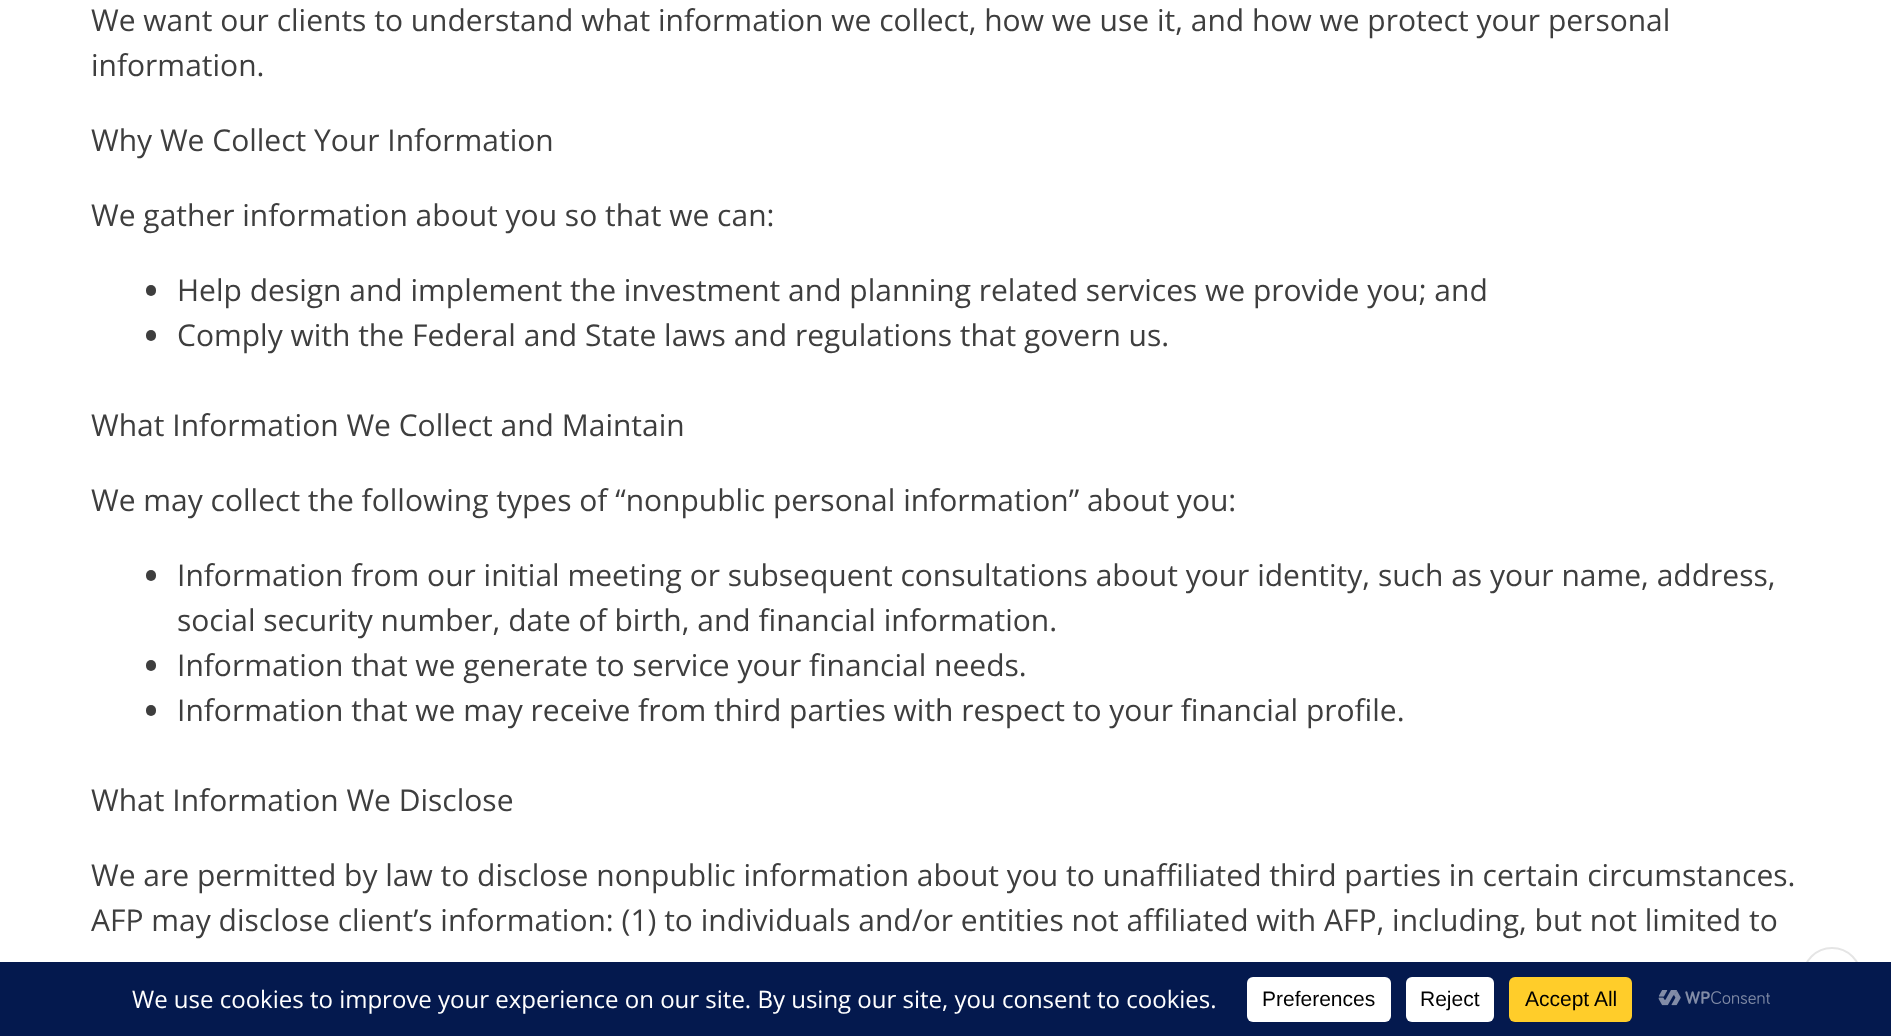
<!DOCTYPE html>
<meta charset="utf-8">
<style>body { margin: 0 } canvas { display: block }</style>
<canvas id="canvas" width="1891" height="1036"></canvas>
<script type="module">
  const canvas = document.getElementById("canvas");
  const g = canvas.getContext("2d");
  g.miterLimit = 4;
  g.fontKerning = "normal";
  function drawText(s, x, y, [font, color]) {
    g.font = font;
    g.fillStyle = color;
    g.fillText(s, x, y);
  }
  function fillBox(x, y, w, h, color) {
    g.fillStyle = color;
    g.fillRect(x, y, w, h);
  }
  function fillRounded(x, y, w, h, r, color) {
    g.fillStyle = color;
    g.beginPath();
    g.roundRect(x, y, w, h, r);
    g.fill();
  }
  async function drawPicture(src, x, y, w, h) {
    const img = new Image();
    img.src = src;
    await img.decode();
    g.drawImage(img, x, y, w, h);
  }

  const s1 = ["30px Open Sans", "#3E3E3E"];
  const s2 = ["24px Open Sans", "#FFFFFF"];
  const s3 = ["21px Liberation Sans", "#000000"];

  fillBox(0, 0, 1891, 1036, "#FFFFFF");
  drawText("We want our clients to understand what information we collect, how we use it, and how we protect your personal", 91, 31, s1);
  drawText("information.", 91, 76, s1);
  drawText("Why We Collect Your Information", 91, 151, s1);
  drawText("We gather information about you so that we can:", 91, 226, s1);
  fillRounded(146, 285, 10, 11, 5, "#3E3E3E");
  drawText("Help design and implement the investment and planning related services we provide you; and", 177, 301, s1);
  fillRounded(146, 330, 10, 11, 5, "#3E3E3E");
  drawText("Comply with the Federal and State laws and regulations that govern us.", 177, 346, s1);
  drawText("What Information We Collect and Maintain", 91, 436, s1);
  drawText("We may collect the following types of “nonpublic personal information” about you:", 91, 511, s1);
  fillRounded(146, 570, 10, 11, 5, "#3E3E3E");
  drawText("Information from our initial meeting or subsequent consultations about your identity, such as your name, address,", 177, 586, s1);
  drawText("social security number, date of birth, and financial information.", 177, 631, s1);
  fillRounded(146, 660, 10, 11, 5, "#3E3E3E");
  drawText("Information that we generate to service your financial needs.", 177, 676, s1);
  fillRounded(146, 705, 10, 11, 5, "#3E3E3E");
  drawText("Information that we may receive from third parties with respect to your financial profile.", 177, 721, s1);
  drawText("What Information We Disclose", 91, 811, s1);
  drawText("We are permitted by law to disclose nonpublic information about you to unaffiliated third parties in certain circumstances.", 91, 886, s1);
  drawText("AFP may disclose client’s information: (1) to individuals and/or entities not affiliated with AFP, including, but not limited to", 91, 931, s1);
  g.beginPath();
  g.arc(1832, 977, 29, 0, Math.PI * 2);
  g.strokeStyle = "#E5E5E5";
  g.lineWidth = 2;
  g.stroke();
  fillBox(0, 962, 1891, 74, "#04194E");
  drawText("We use cookies to improve your experience on our site. By using our site, you consent to cookies.", 132, 1008, s2);
  fillRounded(1247, 977, 144, 45, 6, "#FFFFFF");
  drawText("Preferences", 1262, 1006, s3);
  fillRounded(1406, 977, 88, 45, 6, "#FFFFFF");
  drawText("Reject", 1420, 1006, s3);
  fillRounded(1509, 977, 123, 45, 6, "#FFCD2A");
  drawText("Accept All", 1525, 1006, s3);
  await drawPicture("pic1.png", 1658, 990, 112, 16);
</script>
